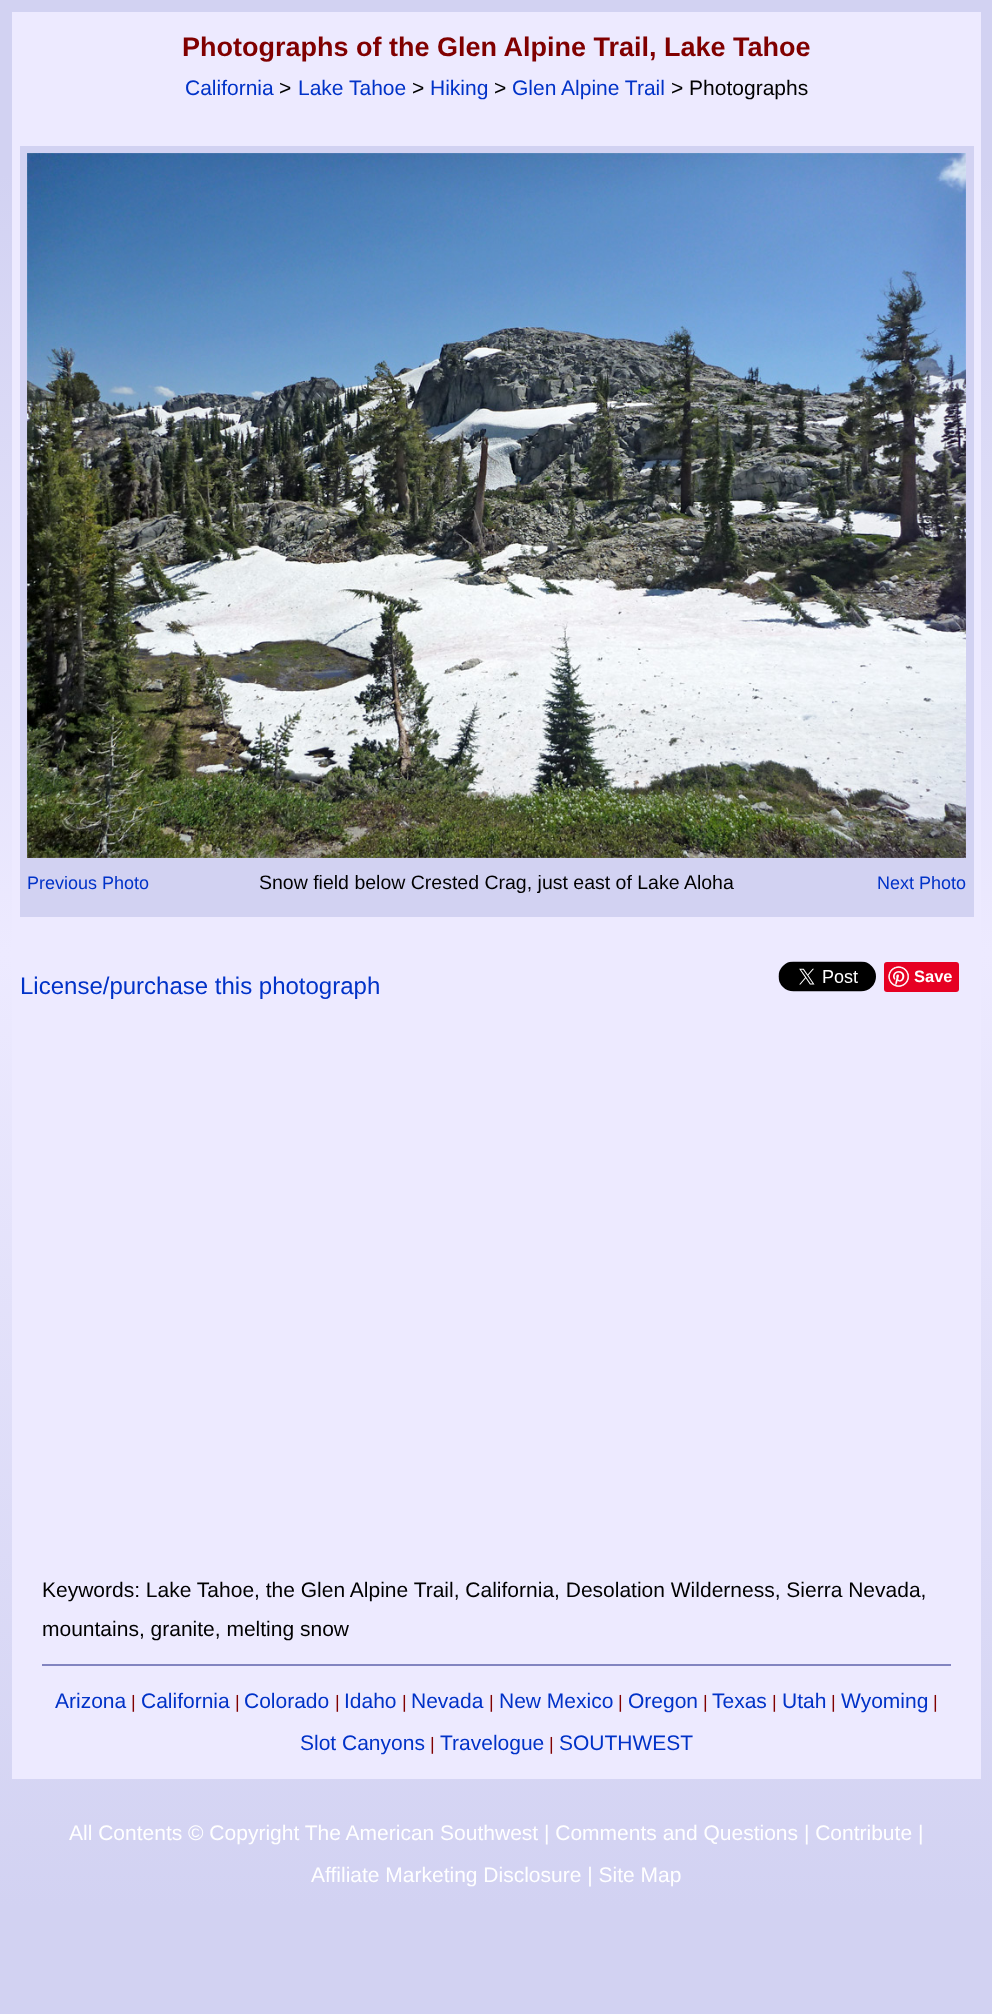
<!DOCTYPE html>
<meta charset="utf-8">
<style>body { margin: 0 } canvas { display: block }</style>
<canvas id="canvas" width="992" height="2014"></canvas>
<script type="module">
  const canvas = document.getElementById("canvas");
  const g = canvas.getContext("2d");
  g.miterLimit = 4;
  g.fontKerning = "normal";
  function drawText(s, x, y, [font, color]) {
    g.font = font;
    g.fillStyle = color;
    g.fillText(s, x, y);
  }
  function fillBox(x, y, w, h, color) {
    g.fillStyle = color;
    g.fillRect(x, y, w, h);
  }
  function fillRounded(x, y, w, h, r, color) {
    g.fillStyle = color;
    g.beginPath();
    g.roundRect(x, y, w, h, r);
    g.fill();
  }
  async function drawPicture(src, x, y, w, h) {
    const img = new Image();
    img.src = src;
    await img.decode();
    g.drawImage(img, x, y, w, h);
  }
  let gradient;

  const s1 = ["bold 27px Liberation Sans", "#800000"];
  const s2 = ["21px Liberation Sans", "#0032C8"];
  const s3 = ["21px Liberation Sans", "#000000"];
  const s4 = ["18px Liberation Sans", "#0032C8"];
  const s5 = ["19.5px Liberation Sans", "#000000"];
  const s6 = ["24px Liberation Sans", "#0032C8"];
  const s7 = ["bold 16.5px Liberation Sans", "#FFFFFF"];
  const s8 = ["18px Liberation Sans", "#800000"];
  const s9 = ["21px Liberation Sans", "#FFFFFF"];

  fillBox(0, 0, 992, 2014, "#FFFFFF");
  gradient = g.createLinearGradient(496, 0, 497, 1908);
  gradient.addColorStop(0.09, "#D2D2F2");
  gradient.addColorStop(0.5, "#EDEAFF");
  gradient.addColorStop(1, "#D2D2F2");
  g.fillStyle = gradient;
  g.fillRect(0, 0, 992, 1908);
  gradient = g.createLinearGradient(496, 1908, 497, 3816);
  gradient.addColorStop(0.09, "#D2D2F2");
  gradient.addColorStop(0.5, "#EDEAFF");
  gradient.addColorStop(1, "#D2D2F2");
  g.fillStyle = gradient;
  g.fillRect(0, 1908, 992, 106);
  fillBox(12, 12, 969, 1767, "#EDEAFF");
  drawText("Photographs of the Glen Alpine Trail, Lake Tahoe", 182, 56, s1);
  drawText("California", 185, 95, s2);
  drawText(">", 279, 95, s3);
  drawText("Lake Tahoe", 298, 95, s2);
  drawText(">", 412, 95, s3);
  drawText("Hiking", 430, 95, s2);
  drawText(">", 494, 95, s3);
  drawText("Glen Alpine Trail", 512, 95, s2);
  drawText("> Photographs", 671, 95, s3);
  fillBox(20, 146, 954, 771, "#D2D2F2");
  await drawPicture("pic1.png", 27, 153, 939, 705);
  drawText("Previous Photo", 27, 889, s4);
  drawText("Snow field below Crested Crag, just east of Lake Aloha", 259, 889, s5);
  drawText("Next Photo", 877, 889, s4);
  drawText("License/purchase this photograph", 20, 994, s6);
  await drawPicture("pic2.png", 778, 961, 98, 31);
  fillRounded(884, 962, 75, 30, 3, "#E60023");
  await drawPicture("pic3.png", 888, 966, 21, 21);
  drawText("Save", 914, 982, s7);
  drawText("Keywords: Lake Tahoe, the Glen Alpine Trail, California, Desolation Wilderness, Sierra Nevada,", 42, 1597, s3);
  drawText("mountains, granite, melting snow", 42, 1636, s3);
  fillBox(42, 1664, 909, 2, "#8284C0");
  drawText("Arizona", 55, 1708, s2);
  drawText("|", 131, 1708, s8);
  drawText("California", 141, 1708, s2);
  drawText("|", 235, 1708, s8);
  drawText("Colorado", 244, 1708, s2);
  drawText("|", 335, 1708, s8);
  drawText("Idaho", 344, 1708, s2);
  drawText("|", 402, 1708, s8);
  drawText("Nevada", 411, 1708, s2);
  drawText("|", 489, 1708, s8);
  drawText("New Mexico", 499, 1708, s2);
  drawText("|", 618, 1708, s8);
  drawText("Oregon", 628, 1708, s2);
  drawText("|", 703, 1708, s8);
  drawText("Texas", 712, 1708, s2);
  drawText("|", 772, 1708, s8);
  drawText("Utah", 782, 1708, s2);
  drawText("|", 831, 1708, s8);
  drawText("Wyoming", 841, 1708, s2);
  drawText("|", 933, 1708, s8);
  drawText("Slot Canyons", 300, 1750, s2);
  drawText("|", 430, 1750, s8);
  drawText("Travelogue", 440, 1750, s2);
  drawText("|", 549, 1750, s8);
  drawText("SOUTHWEST", 559, 1750, s2);
  drawText("All Contents © Copyright The American Southwest | Comments and Questions | Contribute |", 69, 1840, s9);
  drawText("Affiliate Marketing Disclosure | Site Map", 311, 1882, s9);
</script>
